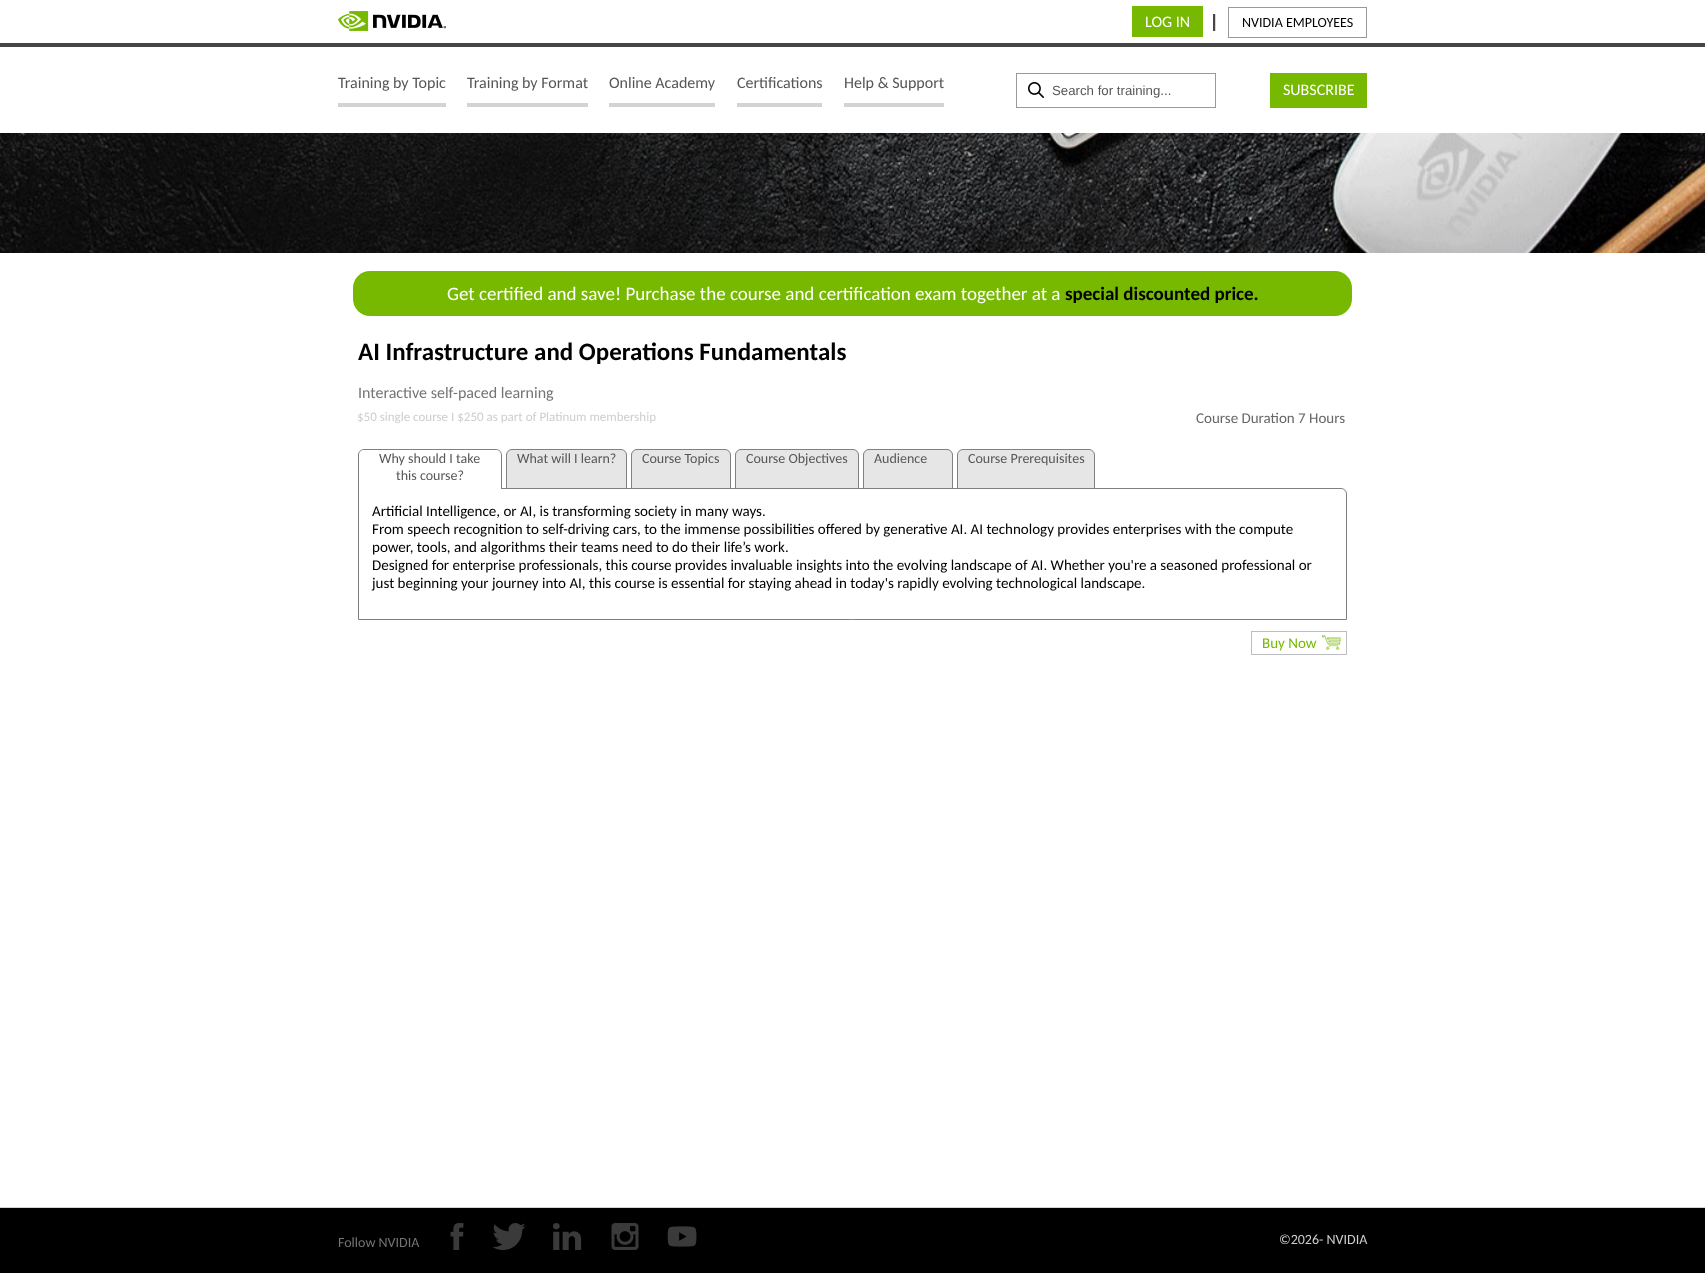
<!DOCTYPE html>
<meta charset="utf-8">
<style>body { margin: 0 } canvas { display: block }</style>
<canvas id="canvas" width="1705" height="1273"></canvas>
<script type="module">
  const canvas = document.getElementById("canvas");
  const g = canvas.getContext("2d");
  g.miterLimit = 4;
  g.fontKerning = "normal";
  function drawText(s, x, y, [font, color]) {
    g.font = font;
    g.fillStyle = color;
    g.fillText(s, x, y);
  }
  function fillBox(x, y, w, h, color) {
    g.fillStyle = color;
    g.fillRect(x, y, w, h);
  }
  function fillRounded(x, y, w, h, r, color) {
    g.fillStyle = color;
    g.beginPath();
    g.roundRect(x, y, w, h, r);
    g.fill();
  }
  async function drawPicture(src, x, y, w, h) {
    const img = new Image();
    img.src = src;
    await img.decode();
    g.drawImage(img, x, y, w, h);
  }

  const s1 = ["16px Carlito", "#FFFFFF"];
  const s2 = ["14px Carlito", "#000000"];
  const s3 = ["16px Carlito", "#575656"];
  const s4 = ["13.25px Liberation Sans", "#575656"];
  const s5 = ["19px Carlito", "#FFFFFF"];
  const s6 = ["bold 19px Carlito", "#000000"];
  const s7 = ["bold 25px Carlito", "#000000"];
  const s8 = ["16px Carlito", "#747474"];
  const s9 = ["13px Carlito", "#CECECE"];
  const s10 = ["15px Carlito", "#686666"];
  const s11 = ["14px Carlito", "#575656"];
  const s12 = ["15px Carlito", "#000000"];
  const s13 = ["15px Carlito", "#76B900"];
  const s14 = ["14px Carlito", "#747474"];
  const s15 = ["14px Carlito", "#CECECE"];

  fillBox(0, 0, 1705, 1273, "#FFFFFF");
  fillBox(0, 43, 1705, 4, "#464646");
  await drawPicture("pic1.png", 338, 11, 108, 20);
  fillBox(1132, 6, 71, 31, "#76B900");
  drawText("LOG IN", 1145, 27, s1);
  fillBox(1213, 14, 2, 17, "#464646");
  fillBox(1215, 14, 1, 17, "#C9D8E2");
  g.strokeStyle = "#999999";
  g.strokeRect(1228.5, 7.5, 138, 30);
  drawText("NVIDIA EMPLOYEES", 1242, 27, s2);
  drawText("Training by Topic", 338, 88, s3);
  fillBox(338, 103, 108, 4, "#D3D3D3");
  drawText("Training by Format", 467, 88, s3);
  fillBox(467, 103, 121, 4, "#D3D3D3");
  drawText("Online Academy", 609, 88, s3);
  fillBox(609, 103, 106, 4, "#D3D3D3");
  drawText("Certifications", 737, 88, s3);
  fillBox(737, 103, 85, 4, "#D3D3D3");
  drawText("Help & Support", 844, 88, s3);
  fillBox(844, 103, 100, 4, "#D3D3D3");
  g.strokeRect(1016.5, 73.5, 199, 34);
  await drawPicture("pic2.png", 1028, 82, 16, 16);
  drawText("Search for training...", 1052, 95, s4);
  fillBox(1270, 73, 97, 35, "#76B900");
  drawText("SUBSCRIBE", 1283, 95, s1);
  await drawPicture("pic3.png", 0, 133, 1705, 120);
  fillRounded(353, 271, 999, 45, 17, "#76B900");
  drawText("Get certified and save! Purchase the course and certification exam together at a", 447, 300, s5);
  drawText("special discounted price.", 1065, 300, s6);
  drawText("AI Infrastructure and Operations Fundamentals", 358, 360, s7);
  drawText("Interactive self-paced learning", 358, 398, s8);
  drawText("$50 single course I $250 as part of Platinum membership", 357, 421, s9);
  drawText("Course Duration 7 Hours", 1196, 423, s10);
  g.fillStyle = "#E6E6E6";
  g.beginPath();
  g.roundRect(506.5, 449.5, 120, 39, [5.5, 5.5, 0, 0]);
  g.fill();
  g.strokeStyle = "#808080";
  g.stroke();
  g.beginPath();
  g.roundRect(631.5, 449.5, 99, 39, [5.5, 5.5, 0, 0]);
  g.fill();
  g.stroke();
  g.beginPath();
  g.roundRect(735.5, 449.5, 123, 39, [5.5, 5.5, 0, 0]);
  g.fill();
  g.stroke();
  g.beginPath();
  g.roundRect(863.5, 449.5, 89, 39, [5.5, 5.5, 0, 0]);
  g.fill();
  g.stroke();
  g.beginPath();
  g.roundRect(957.5, 449.5, 137, 39, [5.5, 5.5, 0, 0]);
  g.fill();
  g.stroke();
  g.beginPath();
  g.roundRect(358.5, 488.5, 988, 131, [0, 5.5, 0, 0]);
  g.stroke();
  g.fillStyle = "#FFFFFF";
  g.beginPath();
  g.roundRect(359, 450, 142, 39, [5, 5, 0, 0]);
  g.fill();
  g.fillStyle = "#808080";
  g.beginPath();
  g.moveTo(364, 449);
  g.lineTo(496, 449);
  g.bezierCurveTo(499, 449, 502, 452, 502, 455);
  g.lineTo(502, 489);
  g.lineTo(358, 489);
  g.lineTo(358, 455);
  g.bezierCurveTo(358, 452, 361, 449, 364, 449);
  g.closePath();
  g.moveTo(364, 450);
  g.lineTo(496, 450);
  g.bezierCurveTo(499, 450, 501, 452, 501, 455);
  g.lineTo(501, 489);
  g.lineTo(359, 489);
  g.lineTo(359, 455);
  g.bezierCurveTo(359, 452, 361, 450, 364, 450);
  g.closePath();
  g.fill("evenodd");
  drawText("Why should I take", 379, 463, s11);
  drawText("this course?", 396, 480, s11);
  drawText("What will I learn?", 517, 463, s11);
  drawText("Course Topics", 642, 463, s11);
  drawText("Course Objectives", 746, 463, s11);
  drawText("Audience", 874, 463, s11);
  drawText("Course Prerequisites", 968, 463, s11);
  drawText("Artificial Intelligence, or AI, is transforming society in many ways.", 372, 516, s12);
  drawText("From speech recognition to self-driving cars, to the immense possibilities offered by generative AI. AI technology provides enterprises with the compute", 372, 534, s12);
  drawText("power, tools, and algorithms their teams need to do their life’s work.", 372, 552, s12);
  drawText("Designed for enterprise professionals, this course provides invaluable insights into the evolving landscape of AI. Whether you're a seasoned professional or", 372, 570, s12);
  drawText("just beginning your journey into AI, this course is essential for staying ahead in today's rapidly evolving technological landscape.", 372, 588, s12);
  g.strokeStyle = "#BCBDC0";
  g.strokeRect(1251.5, 631.5, 95, 23);
  drawText("Buy Now", 1262, 648, s13);
  await drawPicture("pic4.png", 1322, 635, 19, 15);
  fillBox(0, 1208, 1705, 65, "#000000");
  fillBox(0, 1207, 1705, 1, "#D3D3D3");
  drawText("Follow NVIDIA", 338, 1247, s14);
  await drawPicture("pic5.png", 450, 1223, 14, 27);
  await drawPicture("pic6.png", 492, 1223, 34, 27);
  await drawPicture("pic7.png", 553, 1223, 29, 27);
  await drawPicture("pic8.png", 611, 1223, 28, 27);
  await drawPicture("pic9.png", 667, 1226, 30, 21);
  drawText("©2026- NVIDIA", 1279, 1244, s15);
</script>
